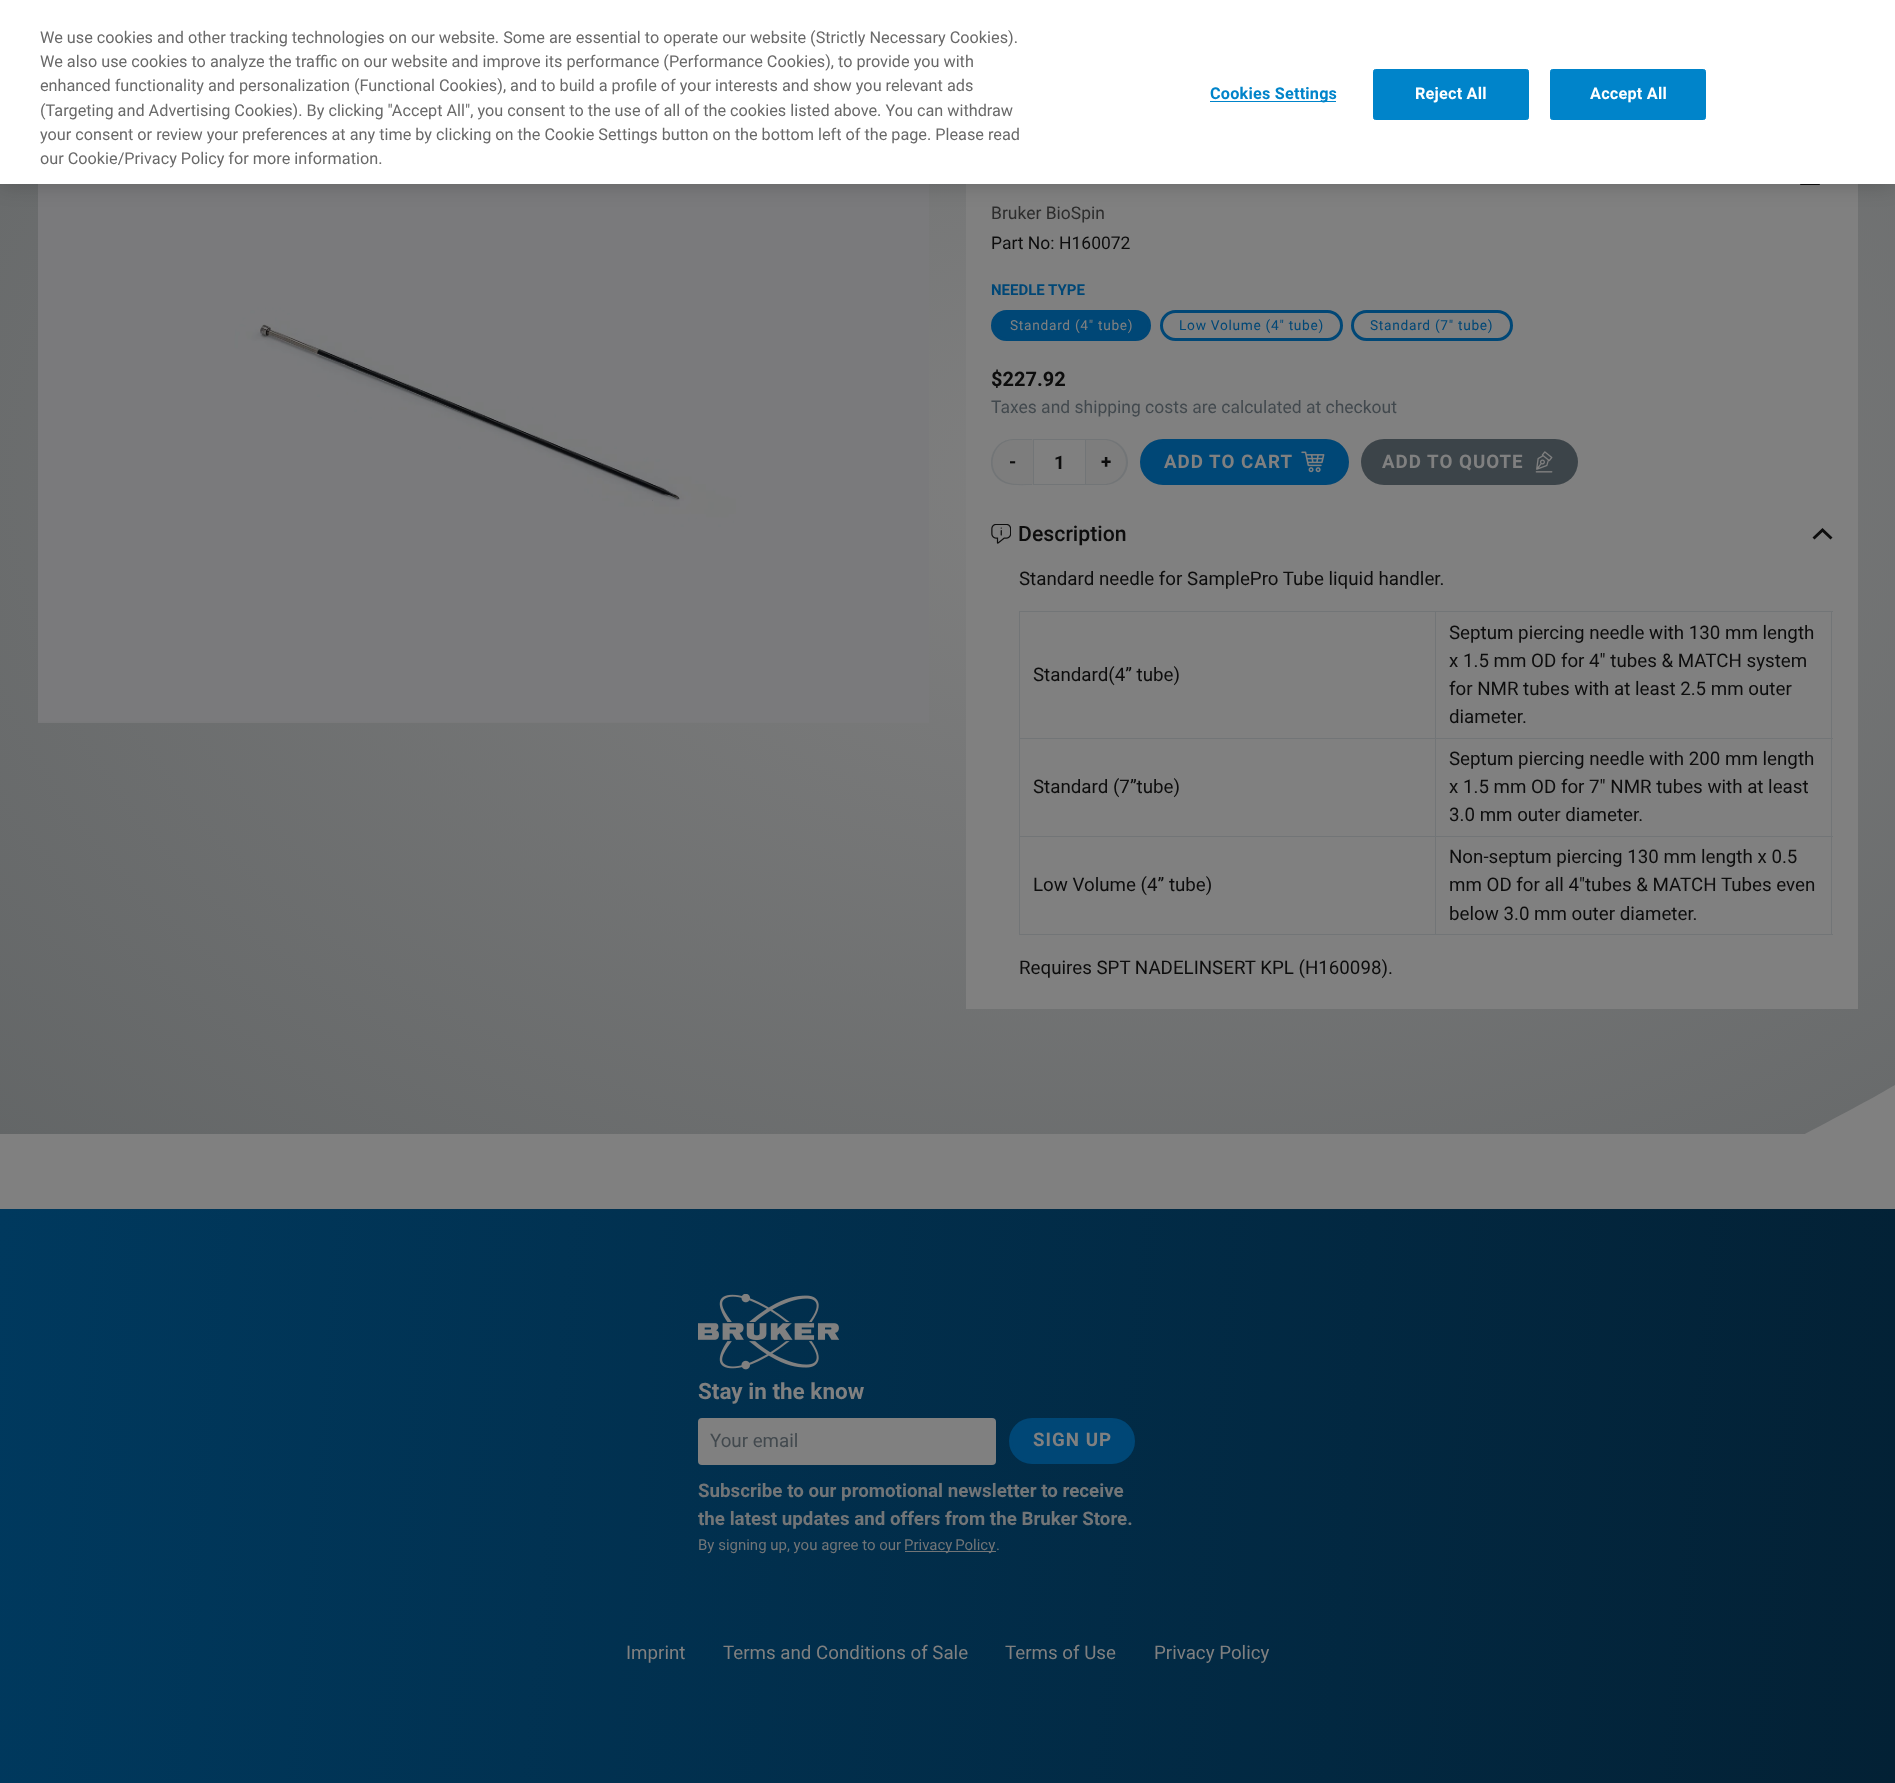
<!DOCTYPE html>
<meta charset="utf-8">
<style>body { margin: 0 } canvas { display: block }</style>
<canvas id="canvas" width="1895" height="1783"></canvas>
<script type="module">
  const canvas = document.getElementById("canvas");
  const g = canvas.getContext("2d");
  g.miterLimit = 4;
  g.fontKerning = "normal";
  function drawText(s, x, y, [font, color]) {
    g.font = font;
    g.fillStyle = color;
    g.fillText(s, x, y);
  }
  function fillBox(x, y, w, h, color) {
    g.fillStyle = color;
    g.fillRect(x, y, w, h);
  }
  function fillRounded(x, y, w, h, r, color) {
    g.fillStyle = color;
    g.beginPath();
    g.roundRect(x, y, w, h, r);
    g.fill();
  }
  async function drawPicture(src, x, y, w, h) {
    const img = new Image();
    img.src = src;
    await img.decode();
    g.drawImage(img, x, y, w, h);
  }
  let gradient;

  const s1 = ["16.25px Roboto", "#696969"];
  const s2 = ["bold 16.25px Roboto", "#0084CA"];
  const s3 = ["bold 16.25px Roboto", "#FFFFFF"];
  const s4 = ["17.5px Roboto", "#2D2D2D"];
  const s5 = ["17.5px Roboto", "#0D0D0D"];
  const s6 = ["bold 15px Roboto", "#004776"];
  const s7 = ["13.75px Roboto", "#808080"];
  const s8 = ["13.75px Roboto", "#004776"];
  const s9 = ["bold 20px Roboto", "#0D0D0D"];
  const s10 = ["17.5px Roboto", "#42494E"];
  const s11 = ["bold 18.75px Roboto", "#0D0D0D"];
  const s12 = ["bold 18.75px Roboto", "#808080"];
  const s13 = ["500 21.25px Roboto", "#0D0D0D"];
  const s14 = ["18.75px Roboto", "#0D0D0D"];
  const s15 = ["bold 22.5px Roboto", "#808080"];
  const s16 = ["18.75px Roboto", "#42494E"];
  const s17 = ["bold 18.75px Roboto", "#727577"];
  const s18 = ["15px Roboto", "#727577"];
  const s19 = ["18.75px Roboto", "#808080"];

  fillBox(0, 0, 1895, 1783, "#808080");
  gradient = g.createRadialGradient(1128, 740.56, 0, 1128, 740.56, 1632);
  gradient.addColorStop(0, "#808080");
  gradient.addColorStop(1, "#616465");
  g.fillStyle = gradient;
  g.beginPath();
  g.rect(0, 184, 1895, 950);
  g.save();
  g.clip();
  g.scale(1, 1060 / 1632);
  g.fillRect(0, 0, 1895, 2746);
  g.restore();
  await drawPicture("pic1.png", 38, 184, 891, 539);
  fillBox(966, 184, 892, 825, "#808080");
  await drawPicture("pic2.png", 1800, 184, 20, 1);
  g.fillStyle = "rgba(0, 0, 0, 0.2)";
  g.filter = "blur(11px)";
  g.beginPath();
  g.rect(0, 0, 1895, 184);
  g.fill();
  g.filter = "none";
  fillBox(0, 0, 1895, 184, "#FFFFFF");
  drawText("We use cookies and other tracking technologies on our website. Some are essential to operate our website (Strictly Necessary Cookies).", 40, 43, s1);
  drawText("We also use cookies to analyze the traffic on our website and improve its performance (Performance Cookies), to provide you with", 40, 67, s1);
  drawText("enhanced functionality and personalization (Functional Cookies), and to build a profile of your interests and show you relevant ads", 40, 91, s1);
  drawText("(Targeting and Advertising Cookies). By clicking \"Accept All\", you consent to the use of all of the cookies listed above. You can withdraw", 40, 116, s1);
  drawText("your consent or review your preferences at any time by clicking on the Cookie Settings button on the bottom left of the page. Please read", 40, 140, s1);
  drawText("our Cookie/Privacy Policy for more information.", 40, 164, s1);
  fillBox(1210, 101, 126, 1, "#0084CA");
  g.letterSpacing = "0.2px";
  drawText("Cookies Settings", 1210, 99, s2);
  g.beginPath();
  g.roundRect(1373.5, 69.5, 155, 50, 2);
  g.fill();
  g.strokeStyle = "#0084CA";
  g.stroke();
  drawText("Reject All", 1415, 99, s3);
  g.fillStyle = "#0084CA";
  g.beginPath();
  g.roundRect(1550.5, 69.5, 155, 50, 2);
  g.fill();
  g.stroke();
  drawText("Accept All", 1590, 99, s3);
  g.letterSpacing = "0px";
  drawText("Bruker BioSpin", 991, 219, s4);
  drawText("Part No:", 991, 249, s5);
  drawText("H160072", 1059, 249, s5);
  drawText("NEEDLE TYPE", 991, 295, s6);
  g.beginPath();
  g.roundRect(992.5, 311.5, 157, 28, 14);
  g.fill();
  g.strokeStyle = "#004776";
  g.lineWidth = 3;
  g.stroke();
  g.letterSpacing = "0.7px";
  drawText("Standard (4\" tube)", 1010, 330, s7);
  g.beginPath();
  g.roundRect(1161.5, 311.5, 180, 28, 14);
  g.stroke();
  drawText("Low Volume (4\" tube)", 1179, 330, s8);
  g.beginPath();
  g.roundRect(1352.5, 311.5, 159, 28, 14);
  g.stroke();
  drawText("Standard (7\" tube)", 1370, 330, s8);
  g.letterSpacing = "0px";
  drawText("$227.92", 991, 386, s9);
  drawText("Taxes and shipping costs are calculated at checkout", 991, 413, s10);
  g.fillStyle = "#7D7D7D";
  g.beginPath();
  g.roundRect(991, 439, 42, 46, [23, 0, 0, 23]);
  g.fill();
  g.fillStyle = "#727577";
  g.beginPath();
  g.moveTo(1014, 439);
  g.lineTo(1032, 439);
  g.lineTo(1032, 485);
  g.bezierCurveTo(1024, 485, 1013, 486, 1005, 483);
  g.bezierCurveTo(982, 474, 989, 439, 1014, 439);
  g.closePath();
  g.moveTo(1014, 440);
  g.lineTo(1032, 440);
  g.lineTo(1032, 484);
  g.bezierCurveTo(1024, 484, 1013, 485, 1006, 482);
  g.bezierCurveTo(984, 473, 991, 440, 1014, 440);
  g.closePath();
  g.fill("evenodd");
  drawText("-", 1009, 468, s11);
  g.strokeStyle = "#727577";
  g.lineWidth = 1;
  g.strokeRect(1033.5, 439.5, 52, 45);
  drawText("1", 1054, 469, s11);
  g.fillStyle = "#7D7D7D";
  g.beginPath();
  g.roundRect(1086, 439, 42, 46, [0, 23, 23, 0]);
  g.fill();
  g.fillStyle = "#727577";
  g.beginPath();
  g.moveTo(1086, 439);
  g.lineTo(1104, 439);
  g.bezierCurveTo(1117, 439, 1128, 449, 1128, 462);
  g.bezierCurveTo(1128, 475, 1117, 485, 1104, 485);
  g.lineTo(1086, 485);
  g.closePath();
  g.moveTo(1086, 440);
  g.lineTo(1104, 440);
  g.bezierCurveTo(1116, 440, 1126, 450, 1126, 462);
  g.bezierCurveTo(1126, 474, 1116, 484, 1104, 484);
  g.lineTo(1086, 484);
  g.closePath();
  g.fill("evenodd");
  drawText("+", 1101, 468, s11);
  g.fillStyle = "#004776";
  g.beginPath();
  g.roundRect(1141.5, 440.5, 206, 43, 21.5);
  g.fill();
  g.strokeStyle = "#004776";
  g.lineWidth = 3;
  g.stroke();
  g.letterSpacing = "1px";
  drawText("ADD TO CART", 1164, 468, s12);
  await drawPicture("pic3.png", 1301, 451, 24, 22);
  fillRounded(1361, 439, 217, 46, 23, "#3C4449");
  drawText("ADD TO QUOTE", 1382, 468, s12);
  await drawPicture("pic4.png", 1535, 451, 18, 22);
  await drawPicture("pic5.png", 991, 524, 20, 20);
  g.letterSpacing = "0px";
  drawText("Description", 1018, 541, s13);
  g.beginPath();
  g.moveTo(1814.5, 539.5);
  g.lineTo(1822.5, 532);
  g.lineTo(1830.5, 539.5);
  g.lineTo(1832.5, 537.5);
  g.lineTo(1822.5, 528);
  g.lineTo(1812.5, 537.5);
  g.closePath();
  g.fill("evenodd");
  drawText("Standard needle for SamplePro Tube liquid handler.", 1019, 585, s14);
  fillBox(1435, 611, 398, 1, "#727577");
  fillBox(1435, 738, 398, 1, "#727577");
  fillBox(1435, 836, 398, 1, "#727577");
  fillBox(1831, 836, 1, 99, "#727577");
  fillBox(1435, 934, 398, 1, "#727577");
  fillBox(1435, 836, 1, 99, "#727577");
  fillBox(1019, 836, 417, 1, "#727577");
  fillBox(1435, 738, 1, 100, "#727577");
  fillBox(1019, 738, 417, 1, "#727577");
  fillBox(1435, 611, 1, 128, "#727577");
  fillBox(1019, 611, 417, 1, "#727577");
  fillBox(1019, 934, 417, 1, "#727577");
  fillBox(1019, 836, 1, 99, "#727577");
  fillBox(1019, 738, 1, 100, "#727577");
  fillBox(1019, 611, 1, 128, "#727577");
  drawText("Standard(4” tube)", 1033, 681, s14);
  fillBox(1831, 738, 1, 100, "#727577");
  fillBox(1831, 611, 1, 128, "#727577");
  drawText("Septum piercing needle with 130 mm length", 1449, 639, s14);
  drawText("x 1.5 mm OD for 4\" tubes & MATCH system", 1449, 667, s14);
  drawText("for NMR tubes with at least 2.5 mm outer", 1449, 695, s14);
  drawText("diameter.", 1449, 723, s14);
  drawText("Standard (7”tube)", 1033, 793, s14);
  drawText("Septum piercing needle with 200 mm length", 1449, 765, s14);
  drawText("x 1.5 mm OD for 7\" NMR tubes with at least", 1449, 793, s14);
  drawText("3.0 mm outer diameter.", 1449, 821, s14);
  drawText("Low Volume (4” tube)", 1033, 891, s14);
  drawText("Non-septum piercing 130 mm length x 0.5", 1449, 863, s14);
  drawText("mm OD for all 4\"tubes & MATCH Tubes even", 1449, 891, s14);
  drawText("below 3.0 mm outer diameter.", 1449, 920, s14);
  drawText("Requires SPT NADELINSERT KPL (H160098).", 1019, 974, s14);
  g.save();
  g.beginPath();
  g.rect(0, 1071, 1895, 63);
  g.clip();
  g.fillStyle = "#808080";
  g.beginPath();
  g.moveTo(1895, 1085);
  g.lineTo(1895, 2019);
  g.lineTo(1, 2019);
  g.bezierCurveTo(94, 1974, 1699, 1201, 1895, 1085);
  g.closePath();
  g.fill("evenodd");
  g.restore();
  gradient = g.createLinearGradient(-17, 1415, 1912, 1577);
  gradient.addColorStop(0, "#00395E");
  gradient.addColorStop(1, "#032135");
  g.fillStyle = gradient;
  g.fillRect(0, 1209, 1895, 574);
  await drawPicture("pic6.png", 698, 1294, 142, 76);
  drawText("Stay in the know", 698, 1399, s15);
  fillRounded(698, 1418, 298, 47, 4, "#808080");
  drawText("Your email", 710, 1447, s16);
  g.fillStyle = "#004776";
  g.beginPath();
  g.roundRect(1010.5, 1419.5, 123, 43, 21.5);
  g.fill();
  g.stroke();
  g.letterSpacing = "1px";
  drawText("SIGN UP", 1033, 1446, s12);
  g.letterSpacing = "0px";
  drawText("Subscribe to our promotional newsletter to receive", 698, 1497, s17);
  drawText("the latest updates and offers from the Bruker Store.", 698, 1525, s17);
  drawText("By signing up, you agree to our", 698, 1550, s18);
  fillBox(905, 1551, 91, 1, "#727577");
  g.wordSpacing = "-1px";
  drawText("Privacy Policy", 904, 1550, s18);
  g.wordSpacing = "0px";
  drawText(".", 996, 1550, s18);
  drawText("Imprint", 626, 1659, s19);
  drawText("Terms and Conditions of Sale", 723, 1659, s19);
  drawText("Terms of Use", 1005, 1659, s19);
  drawText("Privacy Policy", 1154, 1659, s19);
</script>
